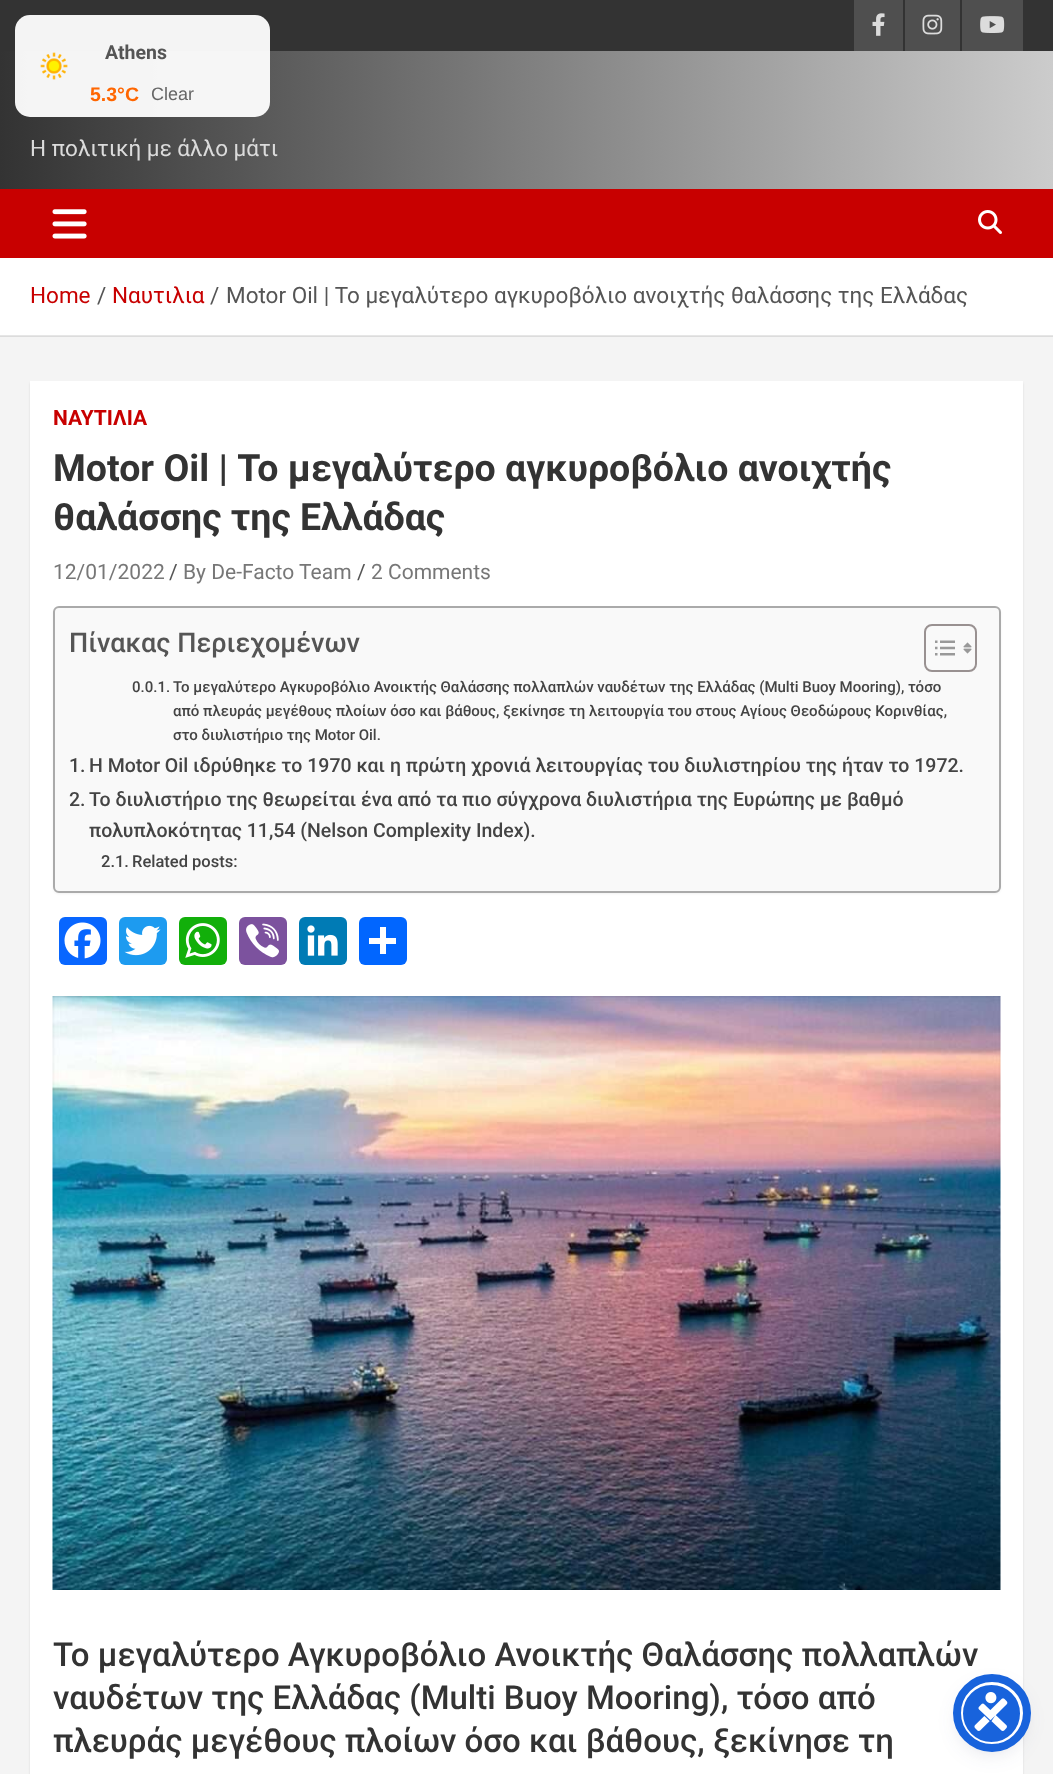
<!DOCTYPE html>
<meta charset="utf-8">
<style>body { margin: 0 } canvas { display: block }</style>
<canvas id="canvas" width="1053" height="1774"></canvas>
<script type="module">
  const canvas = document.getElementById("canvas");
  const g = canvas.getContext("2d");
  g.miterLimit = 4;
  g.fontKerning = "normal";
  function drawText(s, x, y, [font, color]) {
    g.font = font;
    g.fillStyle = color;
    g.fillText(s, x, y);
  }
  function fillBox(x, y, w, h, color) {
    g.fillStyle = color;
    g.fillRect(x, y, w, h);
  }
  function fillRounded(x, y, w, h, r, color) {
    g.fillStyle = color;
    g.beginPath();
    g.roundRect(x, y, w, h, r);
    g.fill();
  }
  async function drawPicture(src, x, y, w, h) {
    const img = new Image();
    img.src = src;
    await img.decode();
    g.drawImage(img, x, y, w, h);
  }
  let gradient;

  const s1 = ["bold 19.5px Roboto", "#555555"];
  const s2 = ["bold 19.5px Liberation Sans", "#FF6600"];
  const s3 = ["18px Liberation Sans", "#666666"];
  const s4 = ["22.5px Roboto", "#DBDBDB"];
  const s5 = ["22.5px Roboto", "#C80000"];
  const s6 = ["22.5px Roboto", "#555555"];
  const s7 = ["bold 21px Roboto", "#C80000"];
  const s8 = ["bold 37.5px Roboto", "#333333"];
  const s9 = ["21px Roboto", "#777777"];
  const s10 = ["21px Roboto", "#555555"];
  const s11 = ["500 27px Roboto", "#555555"];
  const s12 = ["500 15px Roboto", "#444444"];
  const s13 = ["500 19.5px Roboto", "#444444"];
  const s14 = ["500 16.5px Roboto", "#444444"];
  const s15 = ["500 33px Roboto", "#333333"];

  fillBox(0, 0, 1053, 1774, "#F4F4F4");
  fillBox(0, 336, 1053, 1, "#DCDCDC");
  fillBox(0, 0, 1053, 51, "#333333");
  gradient = g.createLinearGradient(0, 120, 1053, 120);
  gradient.addColorStop(0, "#333333");
  gradient.addColorStop(1, "#CCCCCC");
  g.fillStyle = gradient;
  g.fillRect(0, 51, 1053, 138);
  fillRounded(15, 15, 255, 102, 15, "rgba(255, 255, 255, 0.95)");
  await drawPicture("pic1.png", 40, 52, 28, 28);
  drawText("Athens", 105, 59, s1);
  drawText("5.3°C", 90, 101, s2);
  drawText("Clear", 151, 100, s3);
  fillBox(854, 0, 49, 51, "#4F4F4F");
  await drawPicture("pic2.png", 872, 13, 13, 23);
  fillBox(905, 0, 55, 51, "#4F4F4F");
  await drawPicture("pic3.png", 922, 14, 21, 21);
  fillBox(962, 0, 61, 51, "#4F4F4F");
  await drawPicture("pic4.png", 980, 16, 25, 17);
  drawText("Η πολιτική με άλλο μάτι", 30, 156, s4);
  fillBox(0, 189, 1053, 69, "#C80000");
  await drawPicture("pic5.png", 52, 209, 35, 30);
  await drawPicture("pic6.png", 978, 210, 24, 24);
  fillBox(0, 258, 1053, 77, "#FFFFFF");
  fillBox(0, 335, 1053, 1, "#E6E6E6");
  drawText("Home", 30, 303, s5);
  drawText("/", 97, 303, s6);
  drawText("Ναυτιλια", 112, 303, s5);
  drawText("/", 210, 303, s6);
  drawText("Motor Oil | Το μεγαλύτερο αγκυροβόλιο ανοιχτής θαλάσσης της Ελλάδας", 226, 303, s6);
  g.fillStyle = "rgba(0, 0, 0, 0.1)";
  g.filter = "blur(1px)";
  g.beginPath();
  g.rect(30, 383, 993, 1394);
  g.fill();
  g.filter = "none";
  fillBox(30, 381, 993, 1393, "#FFFFFF");
  drawText("ΝΑΥΤΙΛΙΑ", 53, 425, s7);
  drawText("Motor Oil | Το μεγαλύτερο αγκυροβόλιο ανοιχτής", 53, 481, s8);
  drawText("θαλάσσης της Ελλάδας", 53, 530, s8);
  drawText("12/01/2022", 53, 579, s9);
  drawText("/", 169, 579, s10);
  drawText("By De-Facto Team", 183, 579, s9);
  drawText("/", 357, 579, s10);
  drawText("2 Comments", 371, 579, s9);
  g.fillStyle = "rgba(0, 0, 0, 0.05)";
  g.filter = "blur(1px)";
  g.beginPath();
  g.roundRect(53, 608, 948, 286, 6);
  g.fill();
  g.filter = "none";
  g.fillStyle = "#F9F9F9";
  g.beginPath();
  g.roundRect(54, 607, 946, 285, 5);
  g.fill();
  g.strokeStyle = "#AAAAAA";
  g.lineWidth = 2;
  g.stroke();
  drawText("Πίνακας Περιεχομένων", 69, 652, s11);
  g.beginPath();
  g.roundRect(925, 625, 51, 46, 7);
  g.strokeStyle = "#999191";
  g.stroke();
  await drawPicture("pic7.png", 935, 640, 20, 16);
  await drawPicture("pic8.png", 963, 642, 9, 12);
  drawText("0.0.1.", 132, 692, s12);
  drawText("Το μεγαλύτερο Αγκυροβόλιο Ανοικτής Θαλάσσης πολλαπλών ναυδέτων της Ελλάδας (Multi Buoy Mooring), τόσο", 173, 692, s12);
  drawText("από πλευράς μεγέθους πλοίων όσο και βάθους, ξεκίνησε τη λειτουργία του στους Αγίους Θεοδώρους Κορινθίας,", 173, 716, s12);
  drawText("στο διυλιστήριο της Motor Oil.", 173, 740, s12);
  drawText("1.", 69, 772, s13);
  drawText("H Motor Oil ιδρύθηκε το 1970 και η πρώτη χρονιά λειτουργίας του διυλιστηρίου της ήταν το 1972.", 89, 772, s13);
  drawText("2.", 69, 806, s13);
  drawText("Το διυλιστήριο της θεωρείται ένα από τα πιο σύγχρονα διυλιστήρια της Ευρώπης με βαθμό", 89, 806, s13);
  drawText("πολυπλοκότητας 11,54 (Nelson Complexity Index).", 89, 837, s13);
  drawText("2.1.", 101, 867, s14);
  drawText("Related posts:", 132, 867, s14);
  fillRounded(59, 917, 48, 48, 6, "#0866FF");
  await drawPicture("pic9.png", 64, 922, 37, 37);
  fillRounded(119, 917, 48, 48, 6, "#1D9BF0");
  await drawPicture("pic10.png", 124, 925, 37, 31);
  fillRounded(179, 917, 48, 48, 6, "#12AF0A");
  await drawPicture("pic11.png", 185, 923, 35, 35);
  fillRounded(239, 917, 48, 48, 6, "#7C529E");
  await drawPicture("pic12.png", 246, 923, 33, 35);
  fillRounded(299, 917, 48, 48, 6, "#007BB5");
  await drawPicture("pic13.png", 307, 925, 31, 31);
  fillRounded(359, 917, 48, 48, 6, "#0166FF");
  fillBox(380, 927, 6, 27, "#FFFFFF");
  fillBox(369, 938, 27, 6, "#FFFFFF");
  await drawPicture("pic14.png", 52, 996, 949, 594);
  drawText("Το μεγαλύτερο Αγκυροβόλιο Ανοικτής Θαλάσσης πολλαπλών", 53, 1666, s15);
  drawText("ναυδέτων της Ελλάδας (Multi Buoy Mooring), τόσο από", 53, 1709, s15);
  drawText("πλευράς μεγέθους πλοίων όσο και βάθους, ξεκίνησε τη", 53, 1752, s15);
  g.fillStyle = "rgba(93, 100, 148, 0.2)";
  g.filter = "blur(3px)";
  g.beginPath();
  g.roundRect(960, 1685, 63, 63, 31.5);
  g.fill();
  g.filter = "none";
  g.fillStyle = "rgba(37, 44, 97, 0.15)";
  g.filter = "blur(11px)";
  g.beginPath();
  g.roundRect(960, 1689, 63, 63, 31.5);
  g.fill();
  g.filter = "none";
  g.fillStyle = "#1863DC";
  g.beginPath();
  g.arc(991.5, 1713.5, 30, 0, Math.PI * 2);
  g.fill();
  g.strokeStyle = "#FFFFFF";
  g.lineWidth = 3;
  g.stroke();
  g.beginPath();
  g.arc(992, 1713, 35, 0, Math.PI * 2);
  g.strokeStyle = "#1863DC";
  g.lineWidth = 8;
  g.stroke();
  await drawPicture("pic15.png", 974, 1692, 34, 39);
</script>
